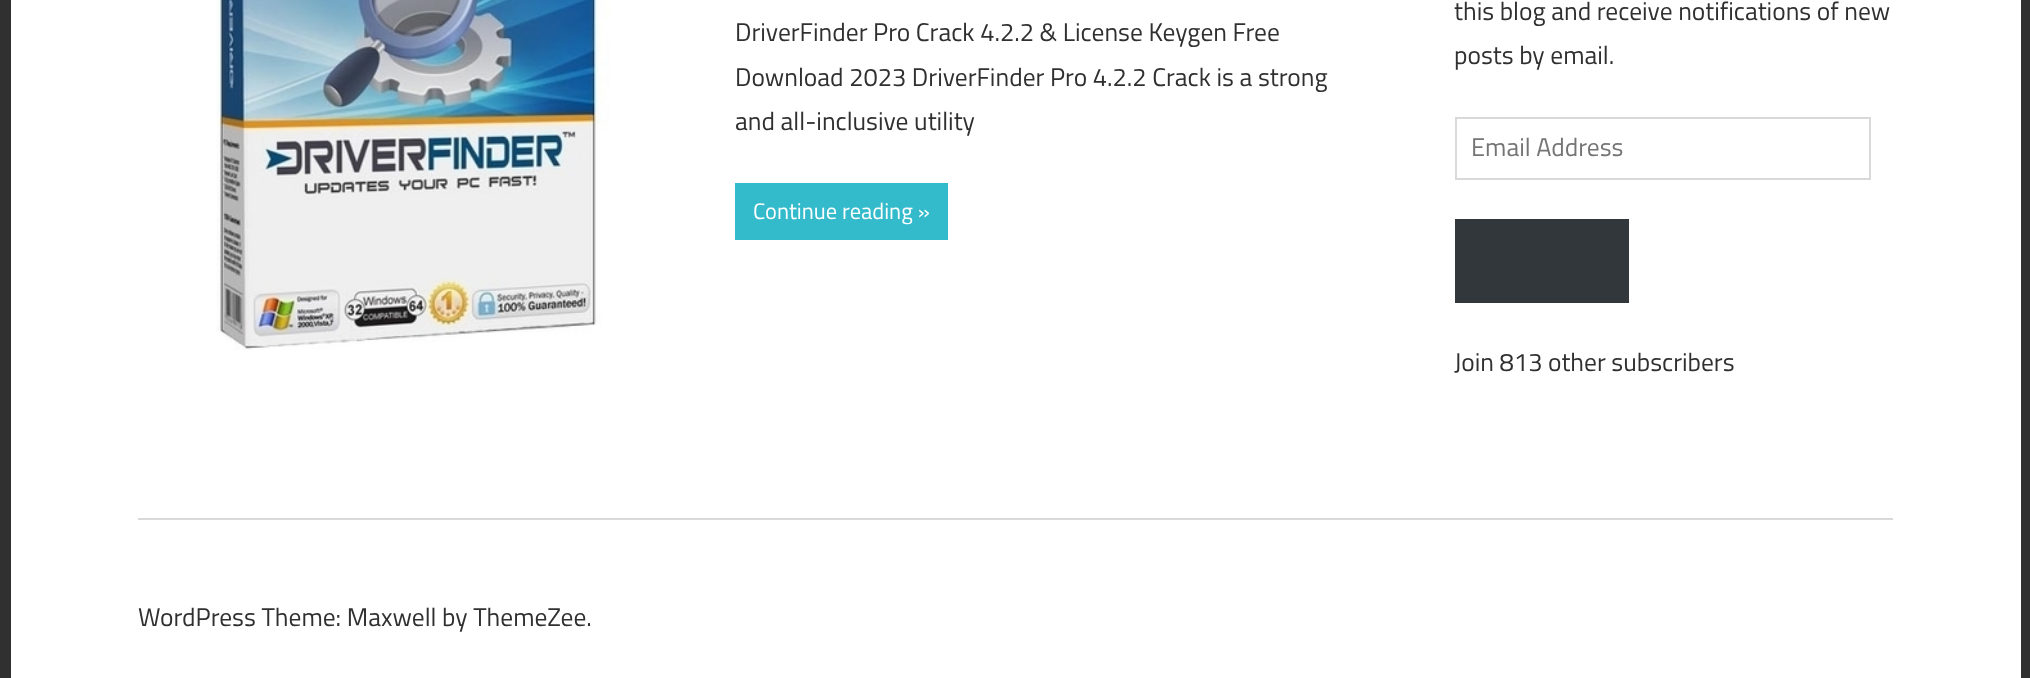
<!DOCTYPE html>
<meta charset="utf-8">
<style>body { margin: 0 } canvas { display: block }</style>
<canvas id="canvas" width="2030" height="678"></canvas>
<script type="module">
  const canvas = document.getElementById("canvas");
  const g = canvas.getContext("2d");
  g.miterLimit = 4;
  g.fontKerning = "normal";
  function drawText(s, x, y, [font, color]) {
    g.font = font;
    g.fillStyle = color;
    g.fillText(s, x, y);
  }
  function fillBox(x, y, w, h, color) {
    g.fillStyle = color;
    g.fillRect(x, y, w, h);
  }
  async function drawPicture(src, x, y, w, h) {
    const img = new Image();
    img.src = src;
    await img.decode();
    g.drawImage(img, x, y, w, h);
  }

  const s1 = ["25.5px Titillium Web", "#303030"];
  const s2 = ["22.5px Titillium Web", "#FFFFFF"];
  const s3 = ["25.5px Titillium Web", "#757575"];

  fillBox(0, 0, 2030, 678, "#303030");
  fillBox(11, 0, 2010, 678, "#FFFFFF");
  await drawPicture("pic1.png", 216, 0, 394, 350);
  drawText("DriverFinder Pro Crack 4.2.2 & License Keygen Free", 735, 41, s1);
  drawText("Download 2023 DriverFinder Pro 4.2.2 Crack is a strong", 735, 86, s1);
  drawText("and all-inclusive utility", 735, 130, s1);
  fillBox(735, 183, 213, 57, "#33BBCC");
  drawText("Continue reading »", 753, 219, s2);
  drawText("this blog and receive notifications of new", 1454, 20, s1);
  drawText("posts by email.", 1454, 64, s1);
  g.strokeStyle = "#D9D9D9";
  g.lineWidth = 2;
  g.strokeRect(1456, 118, 414, 61);
  drawText("Email Address", 1471, 156, s3);
  fillBox(1455, 219, 174, 84, "#32373C");
  drawText("Join 813 other subscribers", 1454, 371, s1);
  fillBox(138, 518, 1755, 2, "#D9D9D9");
  drawText("WordPress Theme: Maxwell by ThemeZee.", 138, 626, s1);
</script>
